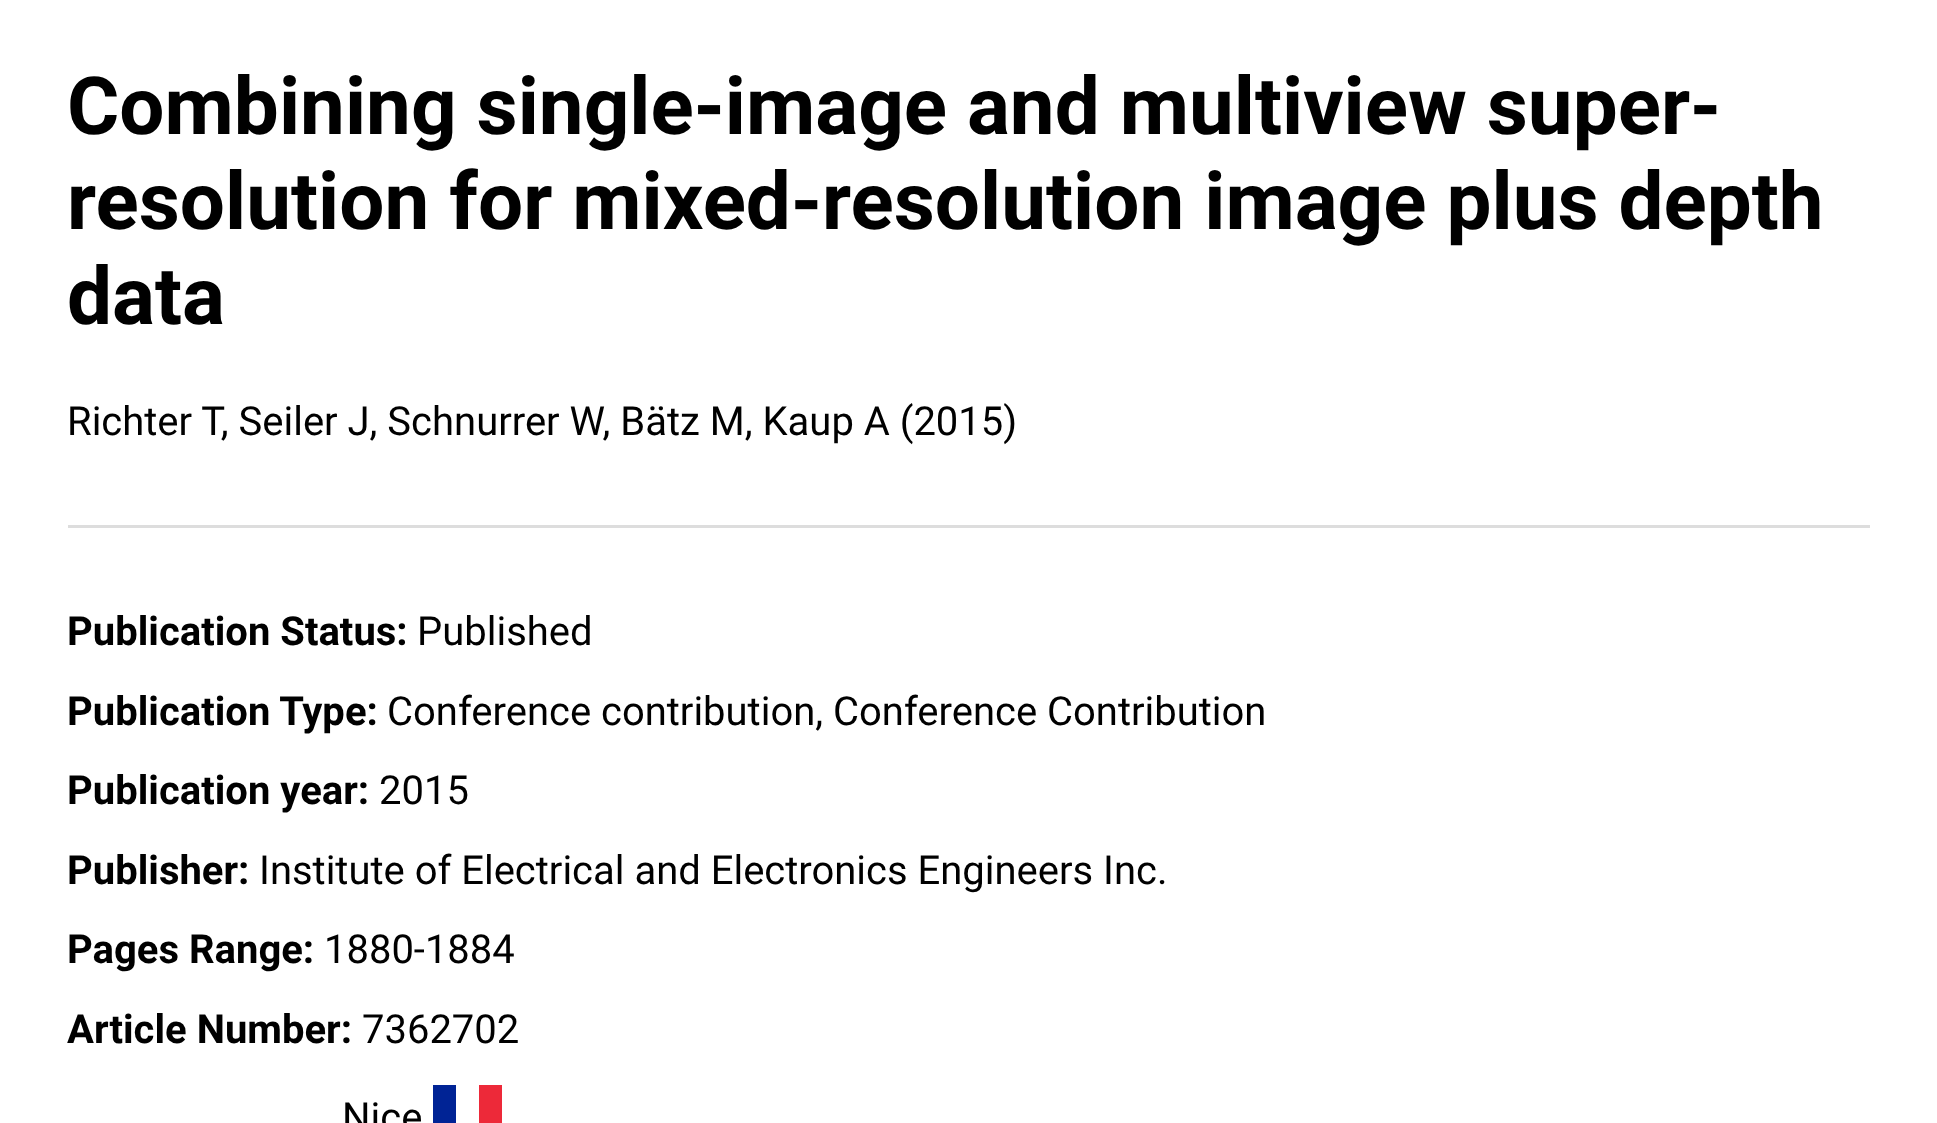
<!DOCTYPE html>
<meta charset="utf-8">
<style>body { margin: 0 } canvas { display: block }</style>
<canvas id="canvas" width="1937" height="1123"></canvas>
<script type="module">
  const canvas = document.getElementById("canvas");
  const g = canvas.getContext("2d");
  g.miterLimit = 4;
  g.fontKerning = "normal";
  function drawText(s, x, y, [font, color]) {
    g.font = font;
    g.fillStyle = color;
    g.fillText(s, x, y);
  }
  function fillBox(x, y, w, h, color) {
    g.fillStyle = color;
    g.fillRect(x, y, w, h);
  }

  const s1 = ["bold 80px Roboto", "#000000"];
  const s2 = ["40px Roboto", "#000000"];
  const s3 = ["bold 40px Roboto", "#000000"];

  fillBox(0, 0, 1937, 1123, "#FFFFFF");
  drawText("Combining single-image and multiview super-", 67, 134, s1);
  drawText("resolution for mixed-resolution image plus depth", 67, 229, s1);
  drawText("data", 67, 324, s1);
  drawText("Richter T, Seiler J, Schnurrer W, Bätz M, Kaup A (2015)", 67, 435, s2);
  fillBox(68, 525, 1802, 3, "#DDDDDD");
  drawText("Publication Status:", 67, 645, s3);
  drawText("Published", 417, 645, s2);
  drawText("Publication Type:", 67, 725, s3);
  drawText("Conference contribution, Conference Contribution", 387, 725, s2);
  drawText("Publication year:", 67, 804, s3);
  drawText("2015", 379, 804, s2);
  drawText("Publisher:", 67, 884, s3);
  drawText("Institute of Electrical and Electronics Engineers Inc.", 259, 884, s2);
  drawText("Pages Range:", 67, 963, s3);
  drawText("1880-1884", 324, 963, s2);
  drawText("Article Number:", 67, 1043, s3);
  drawText("7362702", 362, 1043, s2);
  drawText("Nice", 342, 1131, s2);
  fillBox(479, 1085, 23, 38, "#ED2939");
  fillBox(433, 1085, 23, 38, "#002395");
</script>
